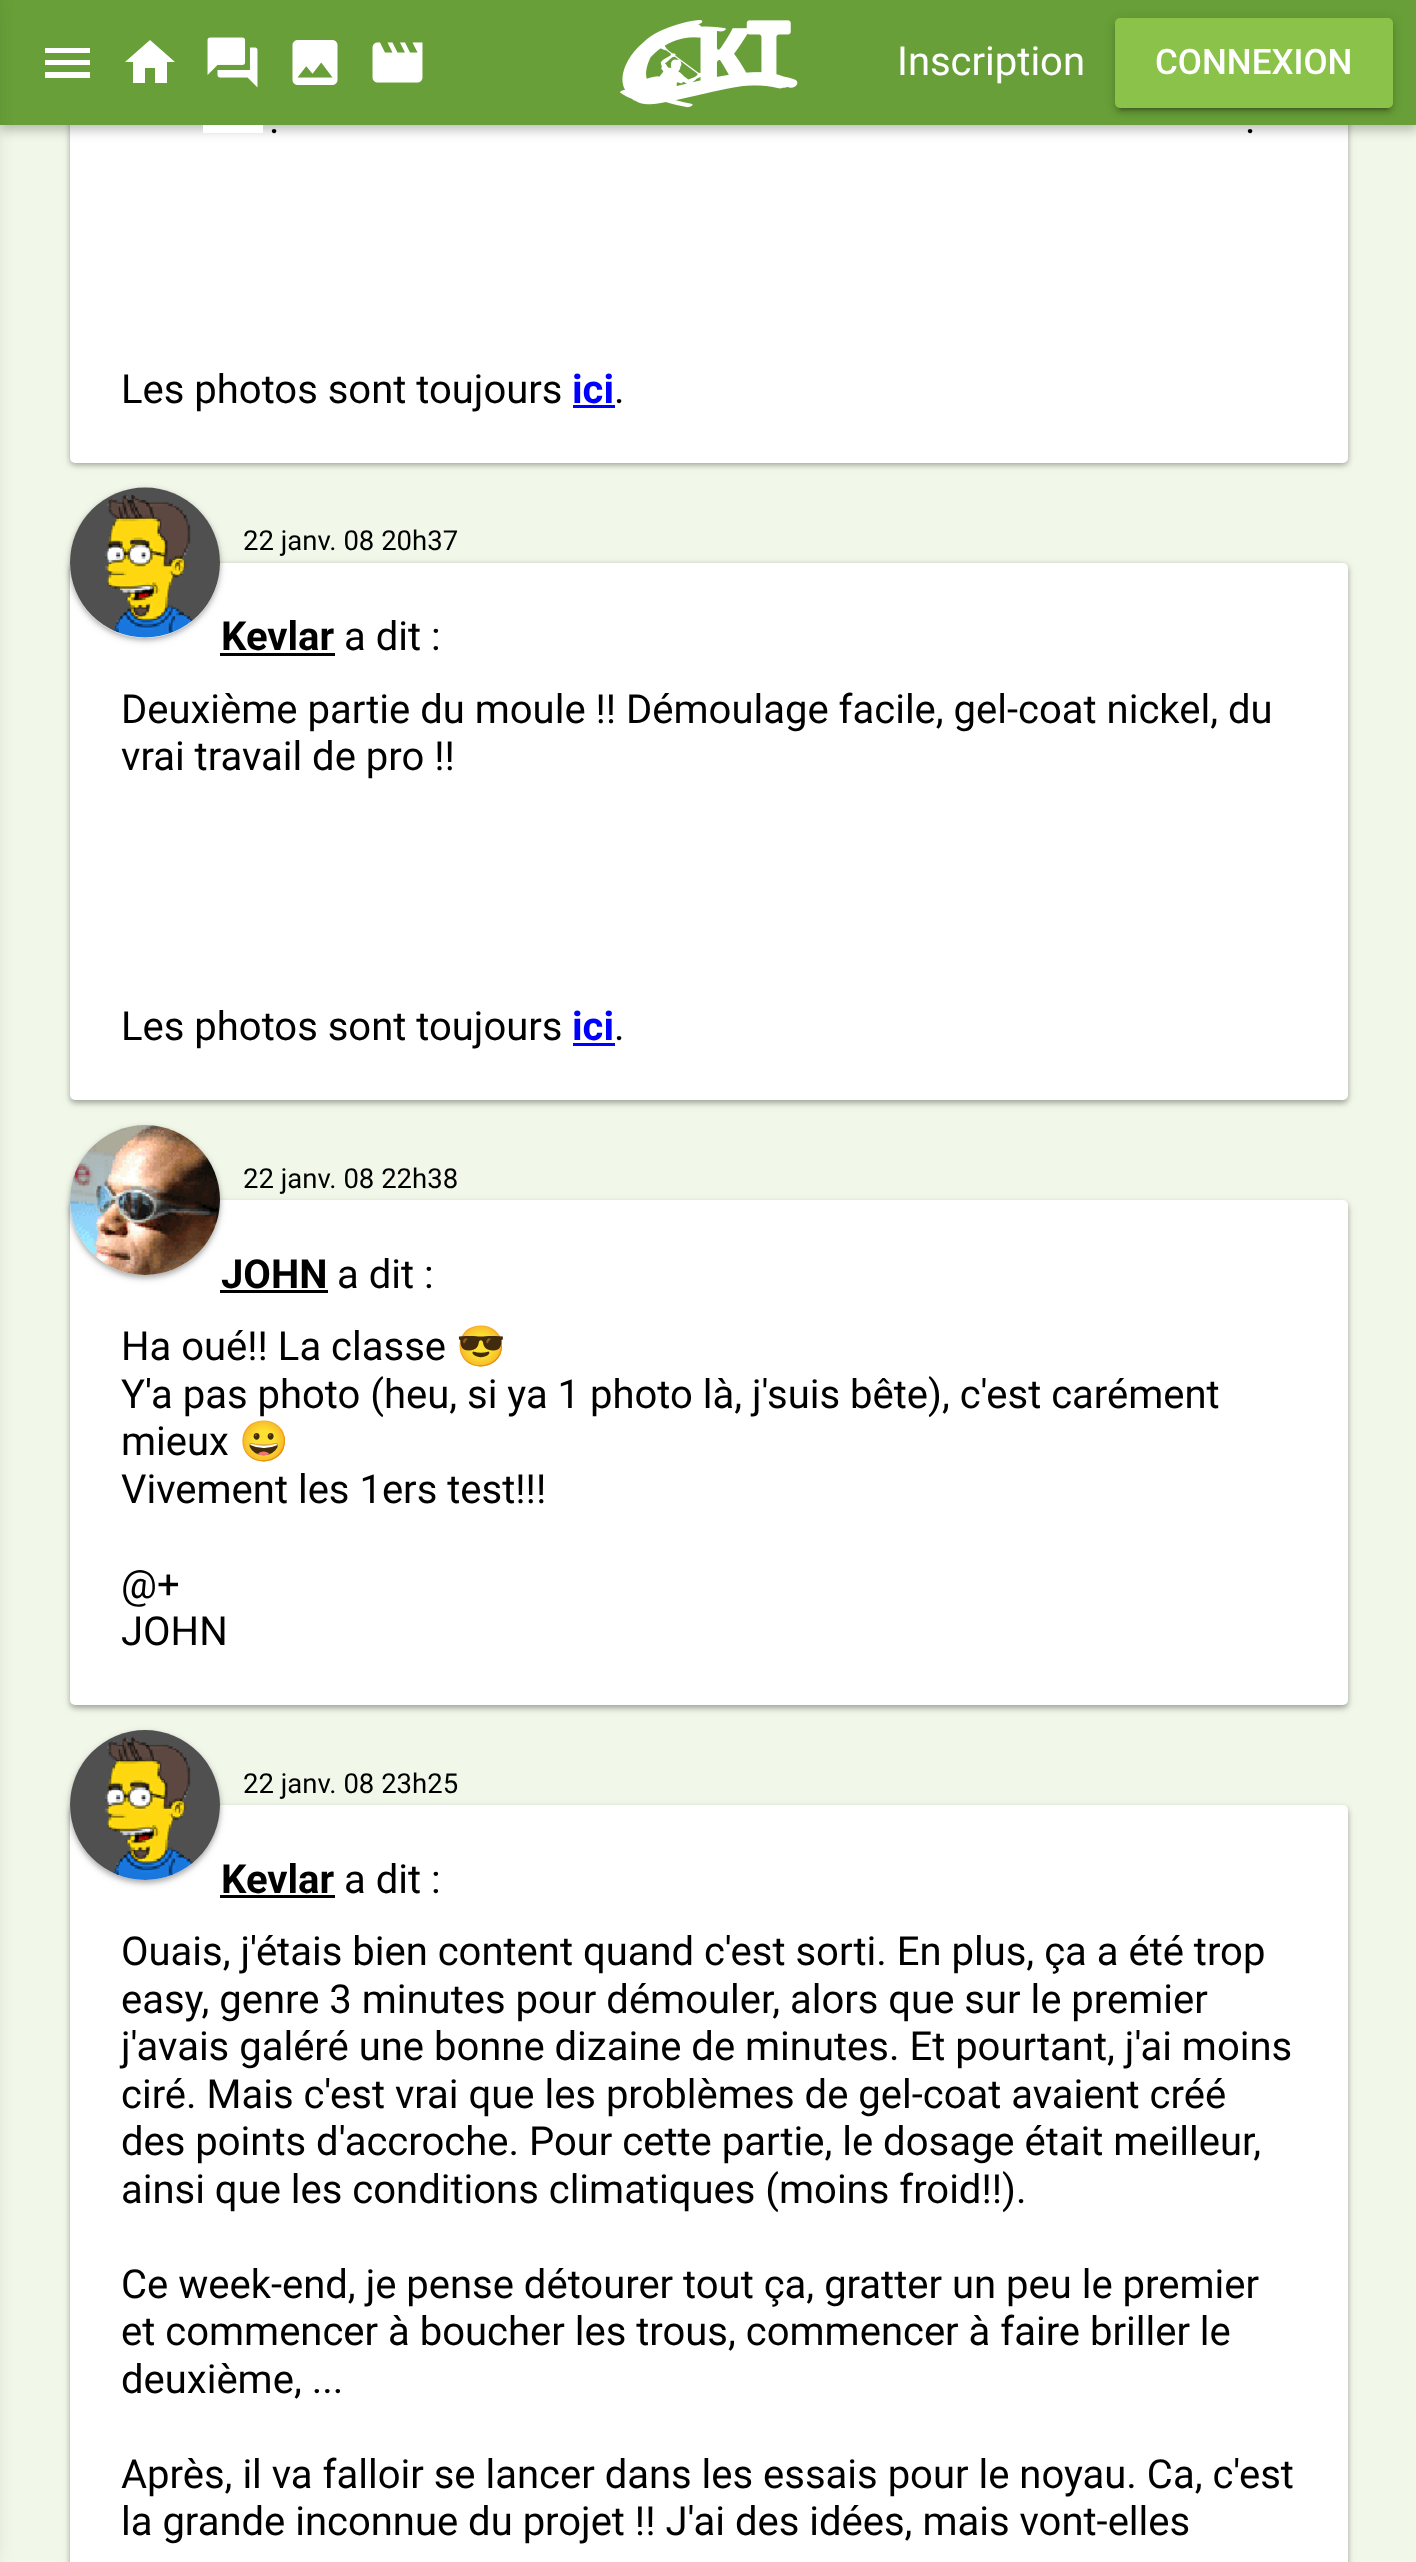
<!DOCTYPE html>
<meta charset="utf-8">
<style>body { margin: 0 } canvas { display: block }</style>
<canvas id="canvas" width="1416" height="2562"></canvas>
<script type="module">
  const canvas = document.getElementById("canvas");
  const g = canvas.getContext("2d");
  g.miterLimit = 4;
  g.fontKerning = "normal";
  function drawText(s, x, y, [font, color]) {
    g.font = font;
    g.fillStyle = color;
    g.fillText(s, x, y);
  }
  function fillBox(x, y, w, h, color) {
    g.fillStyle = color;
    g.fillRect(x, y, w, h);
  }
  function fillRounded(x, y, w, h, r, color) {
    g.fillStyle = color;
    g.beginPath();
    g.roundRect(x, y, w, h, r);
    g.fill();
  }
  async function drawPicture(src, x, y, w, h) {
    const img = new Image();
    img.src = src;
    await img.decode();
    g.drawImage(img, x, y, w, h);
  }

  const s1 = ["40px Roboto", "#FFFFFF"];
  const s2 = ["500 35px Roboto", "#FFFFFF"];
  const s3 = ["40px Roboto", "#000000"];
  const s4 = ["bold 40px Roboto", "#0000FF"];
  const s5 = ["27.5px Roboto", "#000000"];
  const s6 = ["bold 40px Roboto", "#000000"];
  const s7 = ["40px Noto Color Emoji", "#000000"];

  fillBox(0, 0, 1416, 2562, "#F1F8E9");
  g.fillStyle = "rgba(0, 0, 0, 0.24)";
  g.filter = "blur(2.5px)";
  g.beginPath();
  g.roundRect(70, -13, 1278, 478, 5);
  g.fill();
  g.filter = "none";
  g.fillStyle = "rgba(0, 0, 0, 0.12)";
  g.filter = "blur(4px)";
  g.beginPath();
  g.roundRect(70, -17, 1278, 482, 5);
  g.fill();
  g.filter = "none";
  fillRounded(70, -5, 1278, 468, 5, "#FFFFFF");
  g.fillStyle = "rgba(0, 0, 0, 0.26)";
  g.filter = "blur(6px)";
  g.beginPath();
  g.rect(0, 5, 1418, 125);
  g.fill();
  g.filter = "none";
  fillBox(0, 0, 1416, 125, "#689F38");
  g.fillStyle = "rgba(0, 0, 0, 0.26)";
  g.filter = "blur(12.5px)";
  g.beginPath();
  g.rect(-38, 0, 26, 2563);
  g.fill();
  g.filter = "none";
  g.fillStyle = "#FFFFFF";
  g.beginPath();
  g.moveTo(45, 48);
  g.lineTo(90, 48);
  g.lineTo(90, 53);
  g.lineTo(45, 53);
  g.closePath();
  g.moveTo(45, 65);
  g.lineTo(45, 60);
  g.lineTo(90, 60);
  g.lineTo(90, 65);
  g.closePath();
  g.moveTo(45, 78);
  g.lineTo(45, 72);
  g.lineTo(90, 72);
  g.lineTo(90, 78);
  g.closePath();
  g.fill();
  g.beginPath();
  g.moveTo(145, 83);
  g.lineTo(133, 83);
  g.lineTo(133, 62);
  g.lineTo(125, 62);
  g.lineTo(150, 40);
  g.lineTo(175, 62);
  g.lineTo(167, 62);
  g.lineTo(167, 83);
  g.lineTo(155, 83);
  g.lineTo(155, 68);
  g.lineTo(145, 68);
  g.closePath();
  g.fill();
  fillBox(203, 125, 60, 8, "#FFFFFF");
  await drawPicture("pic1.png", 207, 37, 51, 51);
  await drawPicture("pic2.png", 292, 40, 46, 45);
  await drawPicture("pic3.png", 372, 42, 51, 41);
  await drawPicture("pic4.png", 620, 20, 178, 88);
  drawText("Inscription", 897, 75, s1);
  g.fillStyle = "rgba(0, 0, 0, 0.12)";
  g.filter = "blur(6px)";
  g.beginPath();
  g.roundRect(1115, 20, 278, 90, 5);
  g.fill();
  g.filter = "none";
  g.fillStyle = "rgba(0, 0, 0, 0.2)";
  g.filter = "blur(1px)";
  g.beginPath();
  g.rect(1120, 30, 268, 80);
  g.fill();
  g.filter = "none";
  g.fillStyle = "rgba(0, 0, 0, 0.14)";
  g.filter = "blur(2.5px)";
  g.beginPath();
  g.roundRect(1115, 23, 278, 90, 5);
  g.fill();
  g.filter = "none";
  fillRounded(1115, 18, 278, 90, 5, "#8BC34A");
  drawText("CONNEXION", 1155, 74, s2);
  drawText(".", 269, 133, s3);
  drawText(".", 1245, 133, s3);
  drawText("Les photos sont toujours", 121, 403, s3);
  drawText("ici", 572, 403, s4);
  fillBox(573, 405, 42, 3, "#0000FF");
  drawText(".", 614, 403, s3);
  g.fillStyle = "rgba(0, 0, 0, 0.24)";
  g.filter = "blur(2.5px)";
  g.beginPath();
  g.roundRect(70, 565, 1278, 538, 5);
  g.fill();
  g.filter = "none";
  g.fillStyle = "rgba(0, 0, 0, 0.12)";
  g.filter = "blur(4px)";
  g.beginPath();
  g.roundRect(70, 565, 1278, 538, 5);
  g.fill();
  g.filter = "none";
  fillRounded(70, 563, 1278, 537, 5, "#FFFFFF");
  g.fillStyle = "rgba(0, 0, 0, 0.24)";
  g.filter = "blur(2.5px)";
  g.beginPath();
  g.roundRect(70, 490, 150, 150, 75);
  g.fill();
  g.filter = "none";
  g.fillStyle = "rgba(0, 0, 0, 0.12)";
  g.filter = "blur(4px)";
  g.beginPath();
  g.roundRect(70, 490, 150, 150, 75);
  g.fill();
  g.filter = "none";
  g.fillStyle = "#FFFFFF";
  g.beginPath();
  g.arc(145, 563, 75, 0, Math.PI * 2);
  g.fill();
  await drawPicture("pic5.png", 69, 487, 151, 151);
  drawText("22 janv. 08 20h37", 243, 550, s5);
  drawText("Kevlar", 221, 650, s6);
  fillBox(220, 653, 115, 3, "#000000");
  drawText("a dit :", 344, 650, s3);
  drawText("Deuxième partie du moule !! Démoulage facile, gel-coat nickel, du", 121, 723, s3);
  drawText("vrai travail de pro !!", 121, 770, s3);
  drawText("Les photos sont toujours", 121, 1040, s3);
  drawText("ici", 572, 1040, s4);
  fillBox(573, 1043, 42, 3, "#0000FF");
  drawText(".", 614, 1040, s3);
  g.fillStyle = "rgba(0, 0, 0, 0.24)";
  g.filter = "blur(2.5px)";
  g.beginPath();
  g.roundRect(70, 1203, 1278, 505, 5);
  g.fill();
  g.filter = "none";
  g.fillStyle = "rgba(0, 0, 0, 0.12)";
  g.filter = "blur(4px)";
  g.beginPath();
  g.roundRect(70, 1203, 1278, 505, 5);
  g.fill();
  g.filter = "none";
  fillRounded(70, 1200, 1278, 505, 5, "#FFFFFF");
  g.fillStyle = "rgba(0, 0, 0, 0.24)";
  g.filter = "blur(2.5px)";
  g.beginPath();
  g.roundRect(70, 1128, 150, 150, 75);
  g.fill();
  g.filter = "none";
  fillBox(220, 1290, 108, 3, "#000000");
  g.fillStyle = "rgba(0, 0, 0, 0.12)";
  g.filter = "blur(4px)";
  g.beginPath();
  g.roundRect(70, 1128, 150, 150, 75);
  g.fill();
  g.filter = "none";
  g.fillStyle = "#FFFFFF";
  g.beginPath();
  g.arc(145, 1200, 75, 0, Math.PI * 2);
  g.fill();
  await drawPicture("pic6.png", 70, 1125, 150, 150);
  drawText("22 janv. 08 22h38", 243, 1188, s5);
  drawText("JOHN", 221, 1288, s6);
  drawText("a dit :", 337, 1288, s3);
  drawText("Ha oué!! La classe", 121, 1360, s3);
  drawText("😎", 456, 1360, s7);
  drawText("Y'a pas photo (heu, si ya 1 photo là, j'suis bête), c'est carément", 121, 1408, s3);
  drawText("mieux", 121, 1455, s3);
  drawText("😀", 239, 1455, s7);
  drawText("Vivement les 1ers test!!!", 121, 1503, s3);
  drawText("@+", 121, 1598, s3);
  drawText("JOHN", 121, 1645, s3);
  g.fillStyle = "rgba(0, 0, 0, 0.24)";
  g.filter = "blur(2.5px)";
  g.beginPath();
  g.roundRect(70, 1808, 1278, 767, 5);
  g.fill();
  g.filter = "none";
  g.fillStyle = "rgba(0, 0, 0, 0.12)";
  g.filter = "blur(4px)";
  g.beginPath();
  g.roundRect(70, 1808, 1278, 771, 5);
  g.fill();
  g.filter = "none";
  fillRounded(70, 1805, 1278, 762, 5, "#FFFFFF");
  g.fillStyle = "rgba(0, 0, 0, 0.24)";
  g.filter = "blur(2.5px)";
  g.beginPath();
  g.roundRect(70, 1733, 150, 150, 75);
  g.fill();
  g.filter = "none";
  fillBox(220, 1895, 115, 3, "#000000");
  g.fillStyle = "rgba(0, 0, 0, 0.12)";
  g.filter = "blur(4px)";
  g.beginPath();
  g.roundRect(70, 1733, 150, 150, 75);
  g.fill();
  g.filter = "none";
  g.fillStyle = "#FFFFFF";
  g.beginPath();
  g.arc(145, 1805, 75, 0, Math.PI * 2);
  g.fill();
  await drawPicture("pic7.png", 70, 1730, 150, 150);
  drawText("22 janv. 08 23h25", 243, 1793, s5);
  drawText("Kevlar", 221, 1893, s6);
  drawText("a dit :", 344, 1893, s3);
  drawText("Ouais, j'étais bien content quand c'est sorti. En plus, ça a été trop", 121, 1965, s3);
  drawText("easy, genre 3 minutes pour démouler, alors que sur le premier", 121, 2013, s3);
  drawText("j'avais galéré une bonne dizaine de minutes. Et pourtant, j'ai moins", 121, 2060, s3);
  drawText("ciré. Mais c'est vrai que les problèmes de gel-coat avaient créé", 121, 2108, s3);
  drawText("des points d'accroche. Pour cette partie, le dosage était meilleur,", 121, 2155, s3);
  drawText("ainsi que les conditions climatiques (moins froid!!).", 121, 2203, s3);
  drawText("Ce week-end, je pense détourer tout ça, gratter un peu le premier", 121, 2298, s3);
  drawText("et commencer à boucher les trous, commencer à faire briller le", 121, 2345, s3);
  drawText("deuxième, ...", 121, 2393, s3);
  drawText("Après, il va falloir se lancer dans les essais pour le noyau. Ca, c'est", 121, 2488, s3);
  drawText("la grande inconnue du projet !! J'ai des idées, mais vont-elles", 121, 2535, s3);
</script>
